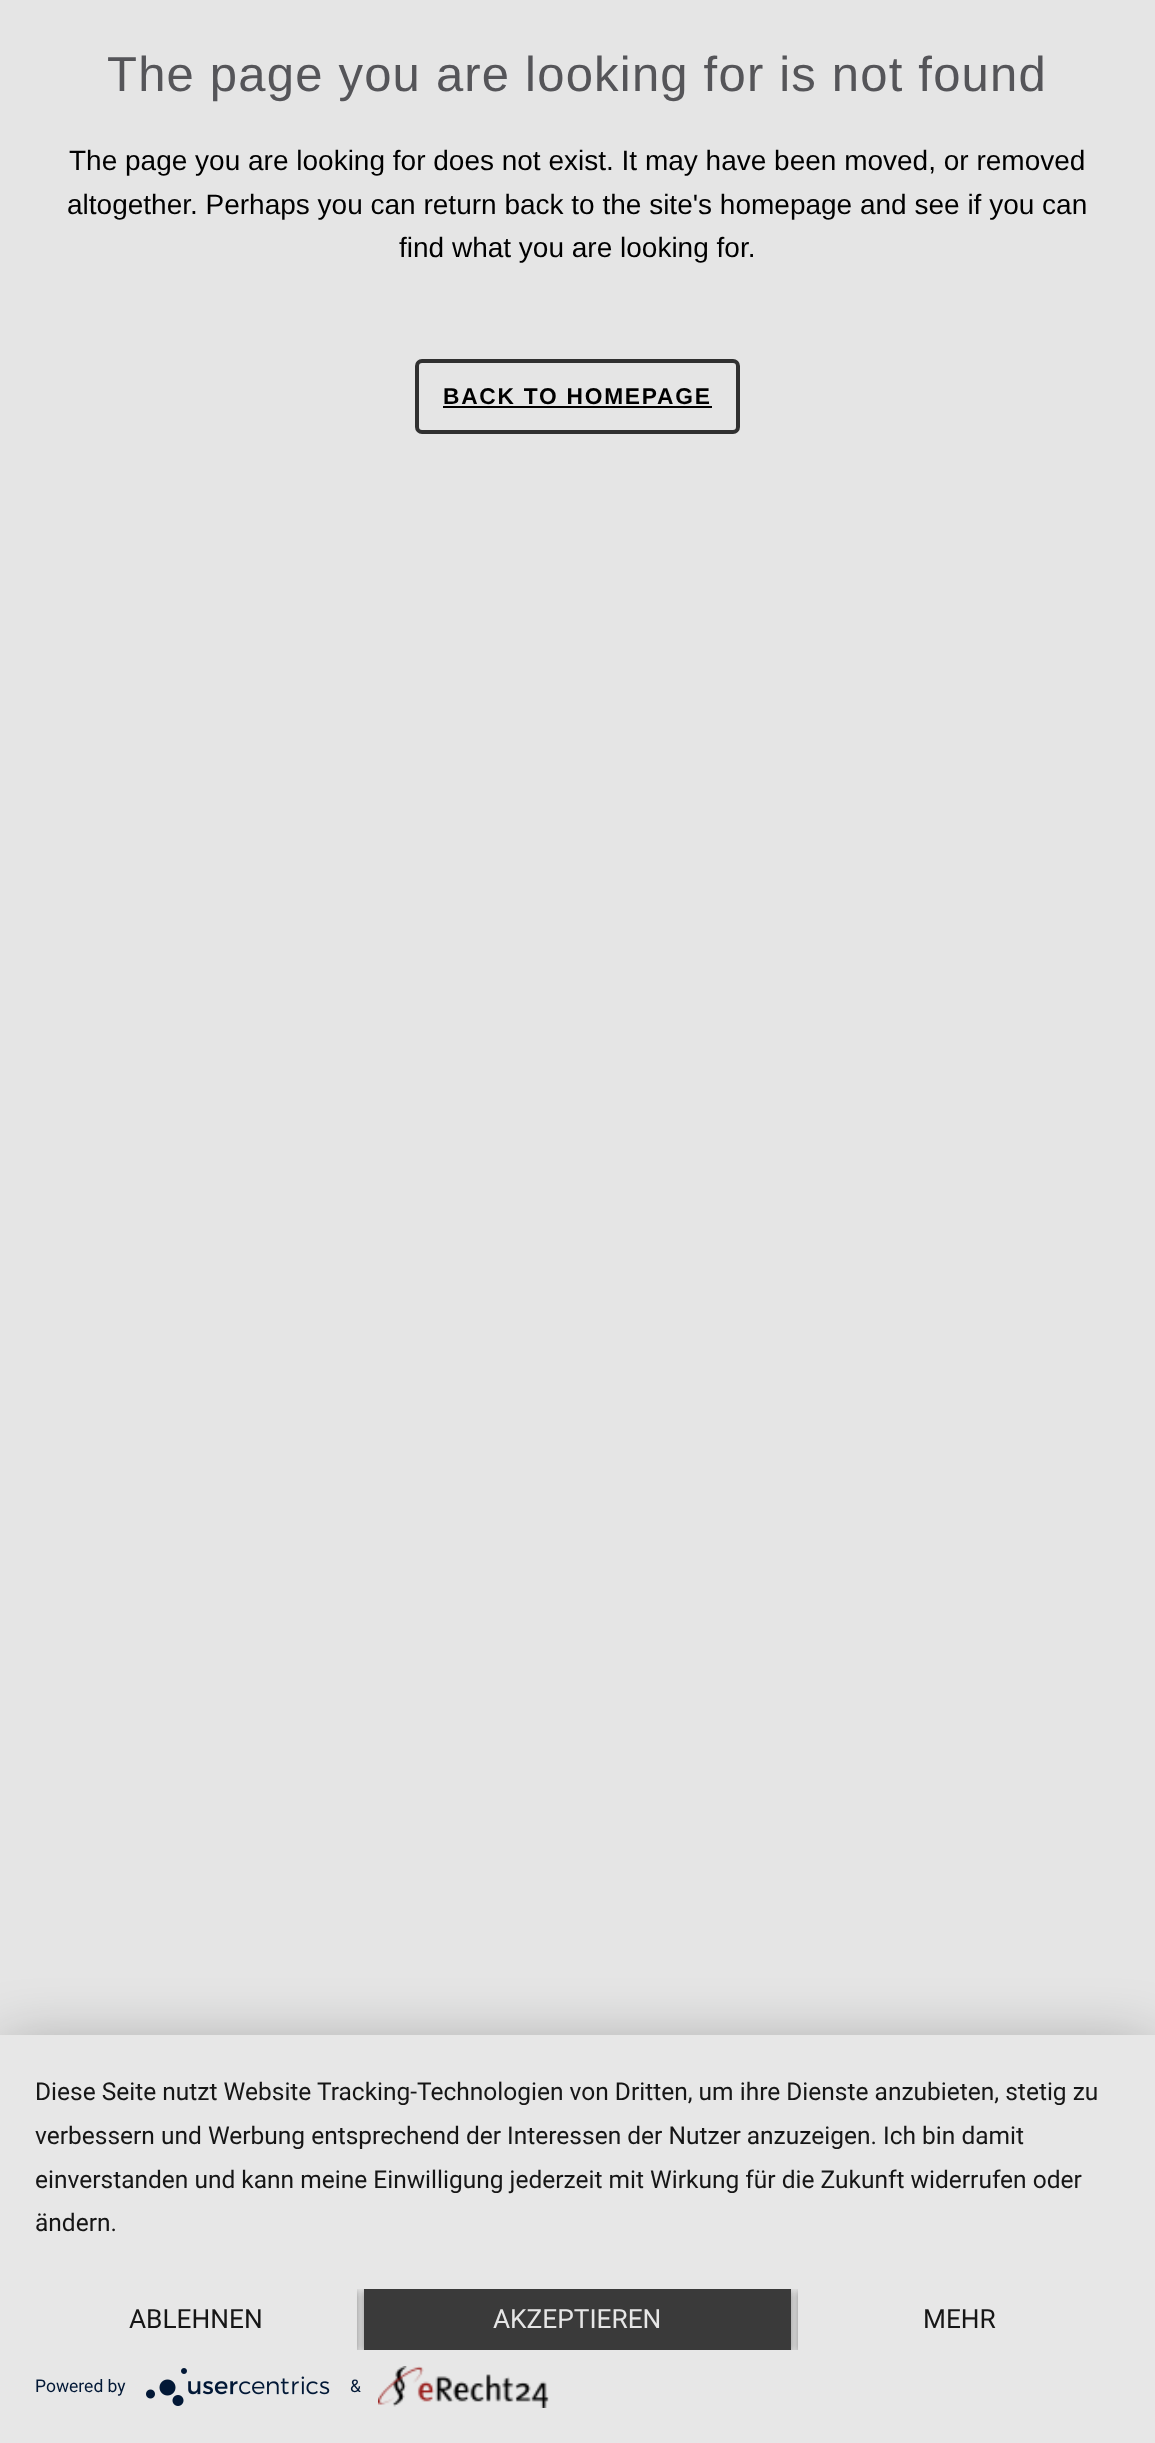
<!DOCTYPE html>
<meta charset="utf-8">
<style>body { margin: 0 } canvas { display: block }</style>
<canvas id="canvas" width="1155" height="2443"></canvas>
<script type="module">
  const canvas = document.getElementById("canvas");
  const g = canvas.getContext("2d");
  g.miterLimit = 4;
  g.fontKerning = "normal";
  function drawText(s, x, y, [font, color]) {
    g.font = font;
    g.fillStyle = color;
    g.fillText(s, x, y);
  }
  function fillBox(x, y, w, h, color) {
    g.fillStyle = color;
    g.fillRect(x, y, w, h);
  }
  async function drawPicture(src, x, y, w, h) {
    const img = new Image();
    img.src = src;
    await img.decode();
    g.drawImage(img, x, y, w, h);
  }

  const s1 = ["49px Liberation Sans", "#555559"];
  const s2 = ["28px Liberation Sans", "#000000"];
  const s3 = ["bold 22.75px Liberation Sans", "#000000"];
  const s4 = ["24.5px Roboto", "#161616"];
  const s5 = ["26.25px Roboto", "#161616"];
  const s6 = ["26.25px Roboto", "#E6E6E6"];
  const s7 = ["17.5px Roboto", "#021836"];

  fillBox(0, 0, 1155, 2443, "#E5E5E5");
  g.letterSpacing = "1.2px";
  drawText("The page you are looking for is not found", 107, 91, s1);
  g.letterSpacing = "0px";
  drawText("The page you are looking for does not exist. It may have been moved, or removed", 69, 170, s2);
  drawText("altogether. Perhaps you can return back to the site's homepage and see if you can", 67, 214, s2);
  drawText("find what you are looking for.", 399, 257, s2);
  g.beginPath();
  g.roundRect(417, 361, 321, 71, 5);
  g.strokeStyle = "#303030";
  g.lineWidth = 4;
  g.stroke();
  g.letterSpacing = "1.75px";
  drawText("BACK TO HOMEPAGE", 443, 404, s3);
  fillBox(443, 406, 269, 2, "#000000");
  g.fillStyle = "rgba(0, 0, 0, 0.3)";
  g.filter = "blur(31.5px)";
  g.beginPath();
  g.rect(0, 2046, 1155, 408);
  g.fill();
  g.filter = "none";
  fillBox(0, 2035, 1155, 408, "#E7E7E7");
  g.letterSpacing = "0px";
  drawText("Diese Seite nutzt Website Tracking-Technologien von Dritten, um ihre Dienste anzubieten, stetig zu", 35, 2100, s4);
  drawText("verbessern und Werbung entsprechend der Interessen der Nutzer anzuzeigen. Ich bin damit", 35, 2144, s4);
  drawText("einverstanden und kann meine Einwilligung jederzeit mit Wirkung für die Zukunft widerrufen oder", 35, 2188, s4);
  drawText("ändern.", 35, 2231, s4);
  g.save();
  g.beginPath();
  g.rect(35, 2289, 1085, 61);
  g.clip();
  g.beginPath();
  g.rect(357, 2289, 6, 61);
  g.clip();
  g.fillStyle = "rgba(0, 0, 0, 0.4)";
  g.filter = "blur(3.5px)";
  g.beginPath();
  g.rect(35, 2291, 322, 61);
  g.fill();
  g.filter = "none";
  g.restore();
  drawText("ABLEHNEN", 129, 2328, s5);
  g.save();
  g.beginPath();
  g.rect(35, 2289, 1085, 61);
  g.clip();
  g.fillStyle = "rgba(0, 0, 0, 0.4)";
  g.filter = "blur(3.5px)";
  g.beginPath();
  g.rect(364, 2291, 427, 61);
  g.fill();
  g.filter = "none";
  g.restore();
  fillBox(364, 2289, 427, 61, "#3A3A3A");
  drawText("AKZEPTIEREN", 493, 2328, s6);
  g.save();
  g.beginPath();
  g.rect(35, 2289, 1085, 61);
  g.clip();
  g.beginPath();
  g.rect(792, 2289, 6, 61);
  g.clip();
  g.fillStyle = "rgba(0, 0, 0, 0.4)";
  g.filter = "blur(3.5px)";
  g.beginPath();
  g.rect(798, 2291, 322, 61);
  g.fill();
  g.filter = "none";
  g.restore();
  drawText("MEHR", 923, 2328, s5);
  drawText("Powered by", 35, 2392, s7);
  await drawPicture("pic1.png", 146, 2368, 184, 38);
  drawText("&", 350, 2392, s7);
  await drawPicture("pic2.png", 378, 2366, 171, 42);
</script>
